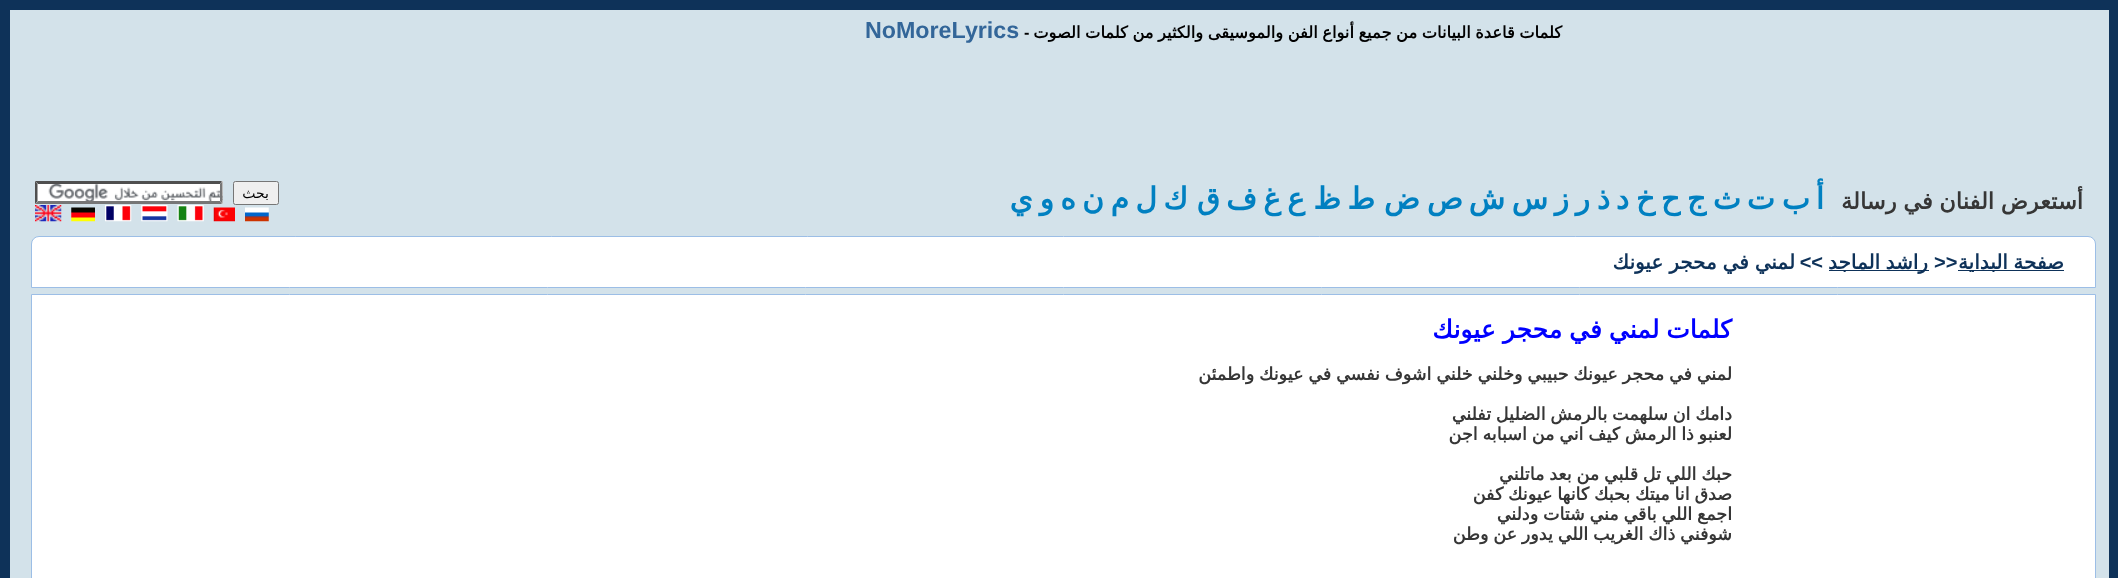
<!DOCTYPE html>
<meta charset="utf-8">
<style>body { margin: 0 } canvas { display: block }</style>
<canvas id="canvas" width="2118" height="578"></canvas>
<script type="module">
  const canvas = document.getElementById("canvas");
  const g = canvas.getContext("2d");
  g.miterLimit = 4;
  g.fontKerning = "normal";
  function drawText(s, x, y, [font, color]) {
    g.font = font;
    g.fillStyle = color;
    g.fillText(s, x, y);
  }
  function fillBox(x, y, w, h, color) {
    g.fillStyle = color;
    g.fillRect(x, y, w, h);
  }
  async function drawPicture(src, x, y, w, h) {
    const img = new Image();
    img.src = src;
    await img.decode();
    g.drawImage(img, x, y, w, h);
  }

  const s1 = ["bold 16.25px DejaVu Sans", "#000000"];
  const s2 = ["bold 16.25px Liberation Sans", "#000000"];
  const s3 = ["bold 23.25px Liberation Sans", "#336699"];
  const s4 = ["bold 22.5px DejaVu Sans", "#363636"];
  const s5 = ["bold 30px DejaVu Sans", "#0080C1"];
  const s6 = ["14px DejaVu Sans", "#000000"];
  const s7 = ["bold 20px DejaVu Sans", "#0E3259"];
  const s8 = ["bold 20px Liberation Sans", "#0E3259"];
  const s9 = ["bold 25px DejaVu Sans", "#0000FF"];
  const s10 = ["bold 17.5px DejaVu Sans", "#363636"];

  fillBox(0, 0, 2118, 578, "#0E3259");
  fillBox(10, 10, 2099, 568, "#D3E2EA");
  g.wordSpacing = "-0.6px";
  g.direction = "rtl";
  drawText("كلمات قاعدة البيانات من جميع أنواع الفن والموسيقى والكثير من كلمات الصوت", 1562, 38, s1);
  g.wordSpacing = "0px";
  g.direction = "ltr";
  drawText("-", 1024, 38, s2);
  drawText("NoMoreLyrics", 865, 38, s3);
  g.wordSpacing = "-0.5px";
  g.direction = "rtl";
  drawText("أستعرض الفنان في رسالة", 2083, 209, s4);
  g.wordSpacing = "0px";
  drawText("أ", 1824, 209, s5);
  drawText("ب", 1810, 209, s5);
  drawText("ت", 1775, 209, s5);
  drawText("ث", 1741, 209, s5);
  drawText("ج", 1706, 209, s5);
  drawText("ح", 1680, 209, s5);
  drawText("خ", 1655, 209, s5);
  drawText("د", 1629, 209, s5);
  drawText("ذ", 1610, 209, s5);
  drawText("ر", 1590, 209, s5);
  drawText("ز", 1569, 209, s5);
  drawText("س", 1548, 209, s5);
  drawText("ش", 1505, 209, s5);
  drawText("ص", 1463, 209, s5);
  drawText("ض", 1420, 209, s5);
  drawText("ط", 1375, 209, s5);
  drawText("ظ", 1341, 209, s5);
  drawText("ع", 1305, 209, s5);
  drawText("غ", 1281, 209, s5);
  drawText("ف", 1257, 209, s5);
  drawText("ق", 1220, 209, s5);
  drawText("ك", 1188, 209, s5);
  drawText("ل", 1157, 209, s5);
  drawText("م", 1129, 209, s5);
  drawText("ن", 1104, 209, s5);
  drawText("ه", 1076, 209, s5);
  drawText("و", 1054, 209, s5);
  drawText("ي", 1033, 209, s5);
  g.fillStyle = "#EFEFEF";
  g.beginPath();
  g.roundRect(233.5, 181.5, 45, 23, 2);
  g.fill();
  g.strokeStyle = "#767676";
  g.stroke();
  drawText("بحث", 269, 198, s6);
  fillBox(35, 181, 188, 23, "#FFFFFF");
  await drawPicture("pic1.png", 48, 184, 175, 17);
  g.fillStyle = "#4F4F4F";
  g.beginPath();
  g.moveTo(35, 181);
  g.lineTo(222, 181);
  g.lineTo(220, 184);
  g.lineTo(38, 184);
  g.closePath();
  g.fill();
  g.fillStyle = "#767676";
  g.beginPath();
  g.moveTo(222.5, 181);
  g.lineTo(222.5, 204);
  g.lineTo(220, 201);
  g.lineTo(220, 184);
  g.closePath();
  g.fill();
  g.beginPath();
  g.moveTo(222, 204);
  g.lineTo(35, 204);
  g.lineTo(38, 201);
  g.lineTo(220, 201);
  g.closePath();
  g.fill();
  g.fillStyle = "#4F4F4F";
  g.beginPath();
  g.moveTo(35, 204);
  g.lineTo(35, 181);
  g.lineTo(37.5, 184);
  g.lineTo(37.5, 201);
  g.closePath();
  g.fill();
  await drawPicture("pic2.png", 245, 207, 24, 15);
  await drawPicture("pic3.png", 213, 207, 22, 15);
  await drawPicture("pic4.png", 177, 205, 27, 17);
  await drawPicture("pic5.png", 141, 205, 27, 17);
  await drawPicture("pic6.png", 105, 205, 27, 17);
  await drawPicture("pic7.png", 71, 207, 24, 15);
  await drawPicture("pic8.png", 35, 205, 27, 17);
  g.fillStyle = "#FFFFFF";
  g.beginPath();
  g.roundRect(31.5, 236.5, 2064, 51, [7.5, 7.5, 0, 0]);
  g.fill();
  g.strokeStyle = "#9CBEE6";
  g.stroke();
  fillBox(1958, 270, 106, 1, "#0E3259");
  g.wordSpacing = "-1px";
  drawText("صفحة البداية", 2064, 269, s7);
  g.wordSpacing = "0px";
  g.direction = "ltr";
  drawText(">>", 1934, 269, s8);
  fillBox(1829, 270, 100, 1, "#0E3259");
  g.wordSpacing = "-1px";
  g.direction = "rtl";
  drawText("راشد الماجد", 1928, 269, s7);
  g.wordSpacing = "0px";
  drawText(">>", 1823, 269, s8);
  g.wordSpacing = "-0.5px";
  drawText("لمني في محجر عيونك", 1795, 269, s7);
  g.fillStyle = "#FFFFFF";
  g.beginPath();
  g.rect(31.5, 294.5, 2064, 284);
  g.fill();
  g.stroke();
  g.wordSpacing = "-1px";
  drawText("كلمات لمني في محجر عيونك", 1732, 338, s9);
  g.wordSpacing = "-0.75px";
  drawText("لمني في محجر عيونك حبيبي وخلني خلني اشوف نفسي في عيونك واطمئن", 1732, 380, s10);
  drawText("دامك ان سلهمت بالرمش الضليل تفلني", 1732, 420, s10);
  drawText("لعنبو ذا الرمش كيف اني من اسبابه اجن", 1732, 440, s10);
  drawText("حبك اللي تل قلبي من بعد ماتلني", 1732, 480, s10);
  drawText("صدق انا ميتك بحبك كانها عيونك كفن", 1732, 500, s10);
  drawText("اجمع اللي باقي مني شتات ودلني", 1732, 520, s10);
  drawText("شوفني ذاك الغريب اللي يدور عن وطن", 1732, 540, s10);
</script>
